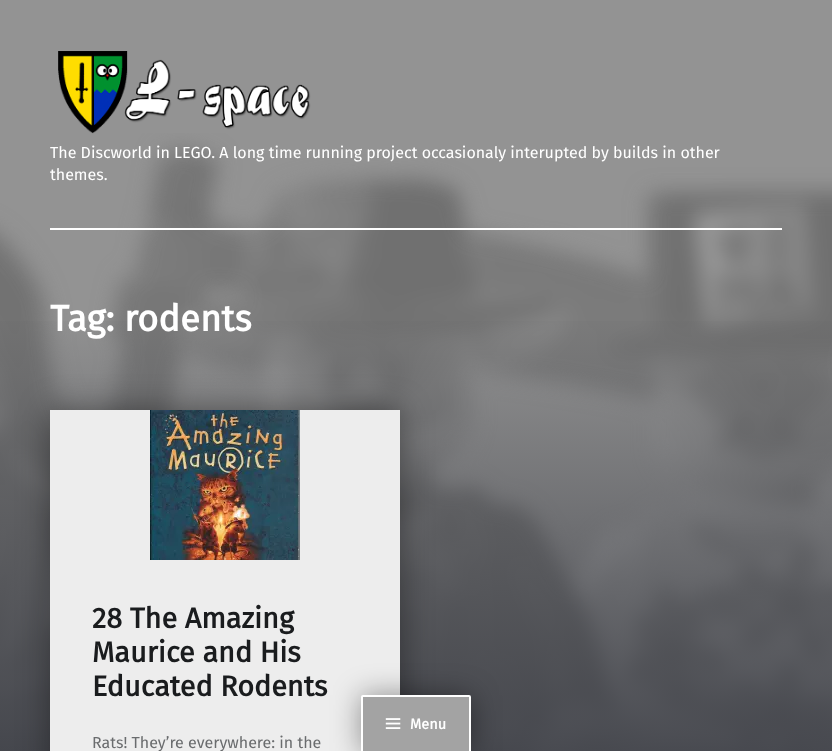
<!DOCTYPE html>
<meta charset="utf-8">
<style>body { margin: 0 } canvas { display: block }</style>
<canvas id="canvas" width="832" height="751"></canvas>
<script type="module">
  const canvas = document.getElementById("canvas");
  const g = canvas.getContext("2d");
  g.miterLimit = 4;
  g.fontKerning = "normal";
  function drawText(s, x, y, [font, color]) {
    g.font = font;
    g.fillStyle = color;
    g.fillText(s, x, y);
  }
  function fillBox(x, y, w, h, color) {
    g.fillStyle = color;
    g.fillRect(x, y, w, h);
  }
  async function drawPicture(src, x, y, w, h) {
    const img = new Image();
    img.src = src;
    await img.decode();
    g.drawImage(img, x, y, w, h);
  }
  let gradient;

  const s1 = ["16px Fira Sans", "#FFFFFF"];
  const s2 = ["bold 14.5px Fira Sans", "#FFFFFF"];
  const s3 = ["bold 36.5px Fira Sans", "#FFFFFF"];
  const s4 = ["bold 28.75px Fira Sans", "#1A1C1E"];
  const s5 = ["16px Fira Sans", "#6A6C6E"];

  fillBox(0, 0, 832, 751, "#939393");
  await drawPicture("pic1.png", 0, 133, 832, 618);
  gradient = g.createLinearGradient(416, 306, 416, 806);
  gradient.addColorStop(0, "rgba(64, 66, 73, 0)");
  gradient.addColorStop(1, "#404249");
  g.fillStyle = gradient;
  g.fillRect(0, 321, 832, 430);
  await drawPicture("pic2.png", 58, 51, 253, 83);
  drawText("The Discworld in LEGO. A long time running project occasionaly interupted by builds in other", 50, 158, s1);
  drawText("themes.", 50, 180, s1);
  g.fillStyle = "rgba(0, 0, 0, 0.4)";
  g.filter = "blur(16px)";
  g.beginPath();
  g.rect(50, 410, 350, 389);
  g.fill();
  g.filter = "none";
  fillBox(50, 410, 350, 341, "#EDEDED");
  g.fillStyle = "rgba(0, 0, 0, 0.4)";
  g.filter = "blur(14.5px)";
  g.beginPath();
  g.roundRect(361, 695, 110, 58, 2);
  g.fill();
  g.filter = "none";
  g.fillStyle = "#A3A3A3";
  g.beginPath();
  g.roundRect(362, 696, 108, 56, 1);
  g.fill();
  g.strokeStyle = "#FFFFFF";
  g.lineWidth = 2;
  g.stroke();
  await drawPicture("pic3.png", 385, 718, 16, 11);
  drawText("Menu", 410, 729, s2);
  fillBox(50, 228, 732, 2, "#FFFFFF");
  drawText("Tag: rodents", 50, 331, s3);
  await drawPicture("pic4.png", 150, 410, 150, 150);
  drawText("28 The Amazing", 92, 628, s4);
  drawText("Maurice and His", 92, 662, s4);
  drawText("Educated Rodents", 92, 696, s4);
  drawText("Rats! They’re everywhere: in the", 92, 748, s5);
</script>
